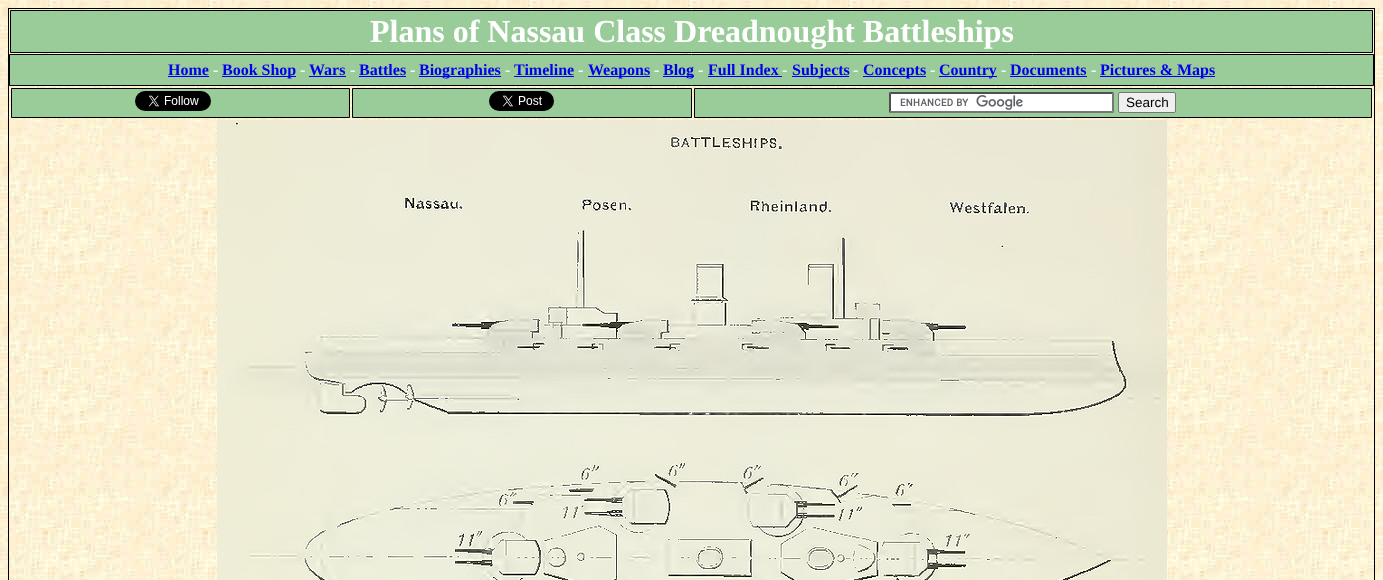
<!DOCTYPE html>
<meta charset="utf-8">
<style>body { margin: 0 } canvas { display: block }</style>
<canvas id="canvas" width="1383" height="580"></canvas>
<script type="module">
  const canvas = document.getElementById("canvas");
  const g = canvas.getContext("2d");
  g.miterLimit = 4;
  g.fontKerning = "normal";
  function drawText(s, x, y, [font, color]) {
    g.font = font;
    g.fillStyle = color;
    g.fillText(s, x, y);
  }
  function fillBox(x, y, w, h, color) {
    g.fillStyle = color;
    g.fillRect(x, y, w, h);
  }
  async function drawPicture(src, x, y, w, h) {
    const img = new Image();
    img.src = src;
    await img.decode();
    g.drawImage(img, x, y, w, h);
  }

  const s1 = ["bold 32px Liberation Serif", "#FFFFFF"];
  const s2 = ["bold 16px Liberation Serif", "#0000EE"];
  const s3 = ["bold 16px Liberation Serif", "#FFFFFF"];
  const s4 = ["13.5px Liberation Sans", "#000000"];

  fillBox(0, 0, 1383, 580, "#FFFFFF");
  await drawPicture("pic1.png", 0, 0, 1383, 580);
  g.strokeStyle = "#000000";
  g.strokeRect(8.5, 8.5, 1366, 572);
  g.fillStyle = "#99CC99";
  g.beginPath();
  g.rect(10.5, 10.5, 1362, 42);
  g.fill();
  g.stroke();
  drawText("Plans of Nassau Class Dreadnought Battleships", 370, 42, s1);
  g.fillStyle = "#99CC99";
  g.beginPath();
  g.rect(9.5, 54.5, 1364, 31);
  g.fill();
  g.stroke();
  drawText("Home", 168, 75, s2);
  fillBox(168, 76, 41, 1, "#0000EE");
  drawText("-", 213, 75, s3);
  fillBox(222, 76, 74, 1, "#0000EE");
  drawText("Book Shop", 222, 75, s2);
  drawText("-", 300, 75, s3);
  drawText("Wars", 309, 75, s2);
  fillBox(309, 76, 37, 1, "#0000EE");
  drawText("-", 350, 75, s3);
  drawText("Battles", 359, 75, s2);
  fillBox(359, 76, 47, 1, "#0000EE");
  drawText("-", 410, 75, s3);
  fillBox(419, 76, 82, 1, "#0000EE");
  drawText("Biographies", 419, 75, s2);
  drawText("-", 505, 75, s3);
  fillBox(514, 76, 60, 1, "#0000EE");
  drawText("Timeline", 514, 75, s2);
  drawText("-", 578, 75, s3);
  fillBox(588, 76, 62, 1, "#0000EE");
  drawText("Weapons", 588, 75, s2);
  drawText("-", 654, 75, s3);
  fillBox(663, 76, 31, 1, "#0000EE");
  drawText("Blog", 663, 75, s2);
  drawText("-", 698, 75, s3);
  drawText("Full Index", 708, 75, s2);
  drawText("-", 782, 75, s3);
  fillBox(708, 76, 74, 1, "#0000EE");
  fillBox(792, 76, 57, 1, "#0000EE");
  drawText("Subjects", 792, 75, s2);
  drawText("-", 853, 75, s3);
  fillBox(863, 76, 63, 1, "#0000EE");
  drawText("Concepts", 863, 75, s2);
  drawText("-", 930, 75, s3);
  fillBox(939, 76, 58, 1, "#0000EE");
  drawText("Country", 939, 75, s2);
  drawText("-", 1001, 75, s3);
  drawText("Documents", 1010, 75, s2);
  fillBox(1010, 76, 77, 1, "#0000EE");
  drawText("-", 1091, 75, s3);
  fillBox(1100, 76, 115, 1, "#0000EE");
  drawText("Pictures & Maps", 1100, 75, s2);
  g.fillStyle = "#99CC99";
  g.beginPath();
  g.rect(11.5, 88.5, 338, 29);
  g.fill();
  g.stroke();
  await drawPicture("pic2.png", 135, 91, 76, 20);
  g.beginPath();
  g.rect(352.5, 88.5, 339, 29);
  g.fill();
  g.stroke();
  await drawPicture("pic3.png", 489, 91, 65, 20);
  g.beginPath();
  g.rect(694.5, 88.5, 677, 29);
  g.fill();
  g.stroke();
  fillBox(889, 92, 225, 21, "#FFFFFF");
  await drawPicture("pic4.png", 900, 95, 123, 15);
  g.fillStyle = "#4F4F4F";
  g.beginPath();
  g.moveTo(889, 92);
  g.lineTo(1114, 92);
  g.lineTo(1112, 94);
  g.lineTo(891, 94);
  g.closePath();
  g.fill();
  g.fillStyle = "#767676";
  g.beginPath();
  g.moveTo(1114, 92);
  g.lineTo(1114, 113);
  g.lineTo(1112, 111);
  g.lineTo(1112, 94);
  g.closePath();
  g.fill();
  g.beginPath();
  g.moveTo(1114, 113);
  g.lineTo(889, 113);
  g.lineTo(891, 111);
  g.lineTo(1112, 111);
  g.closePath();
  g.fill();
  g.fillStyle = "#4F4F4F";
  g.beginPath();
  g.moveTo(889, 113);
  g.lineTo(889, 92);
  g.lineTo(891, 94);
  g.lineTo(891, 111);
  g.closePath();
  g.fill();
  g.fillStyle = "#EFEFEF";
  g.beginPath();
  g.roundRect(1118.5, 92.5, 57, 20, 1.5);
  g.fill();
  g.strokeStyle = "#767676";
  g.stroke();
  drawText("Search", 1126, 107, s4);
  await drawPicture("pic5.png", 217, 120, 950, 460);
</script>
